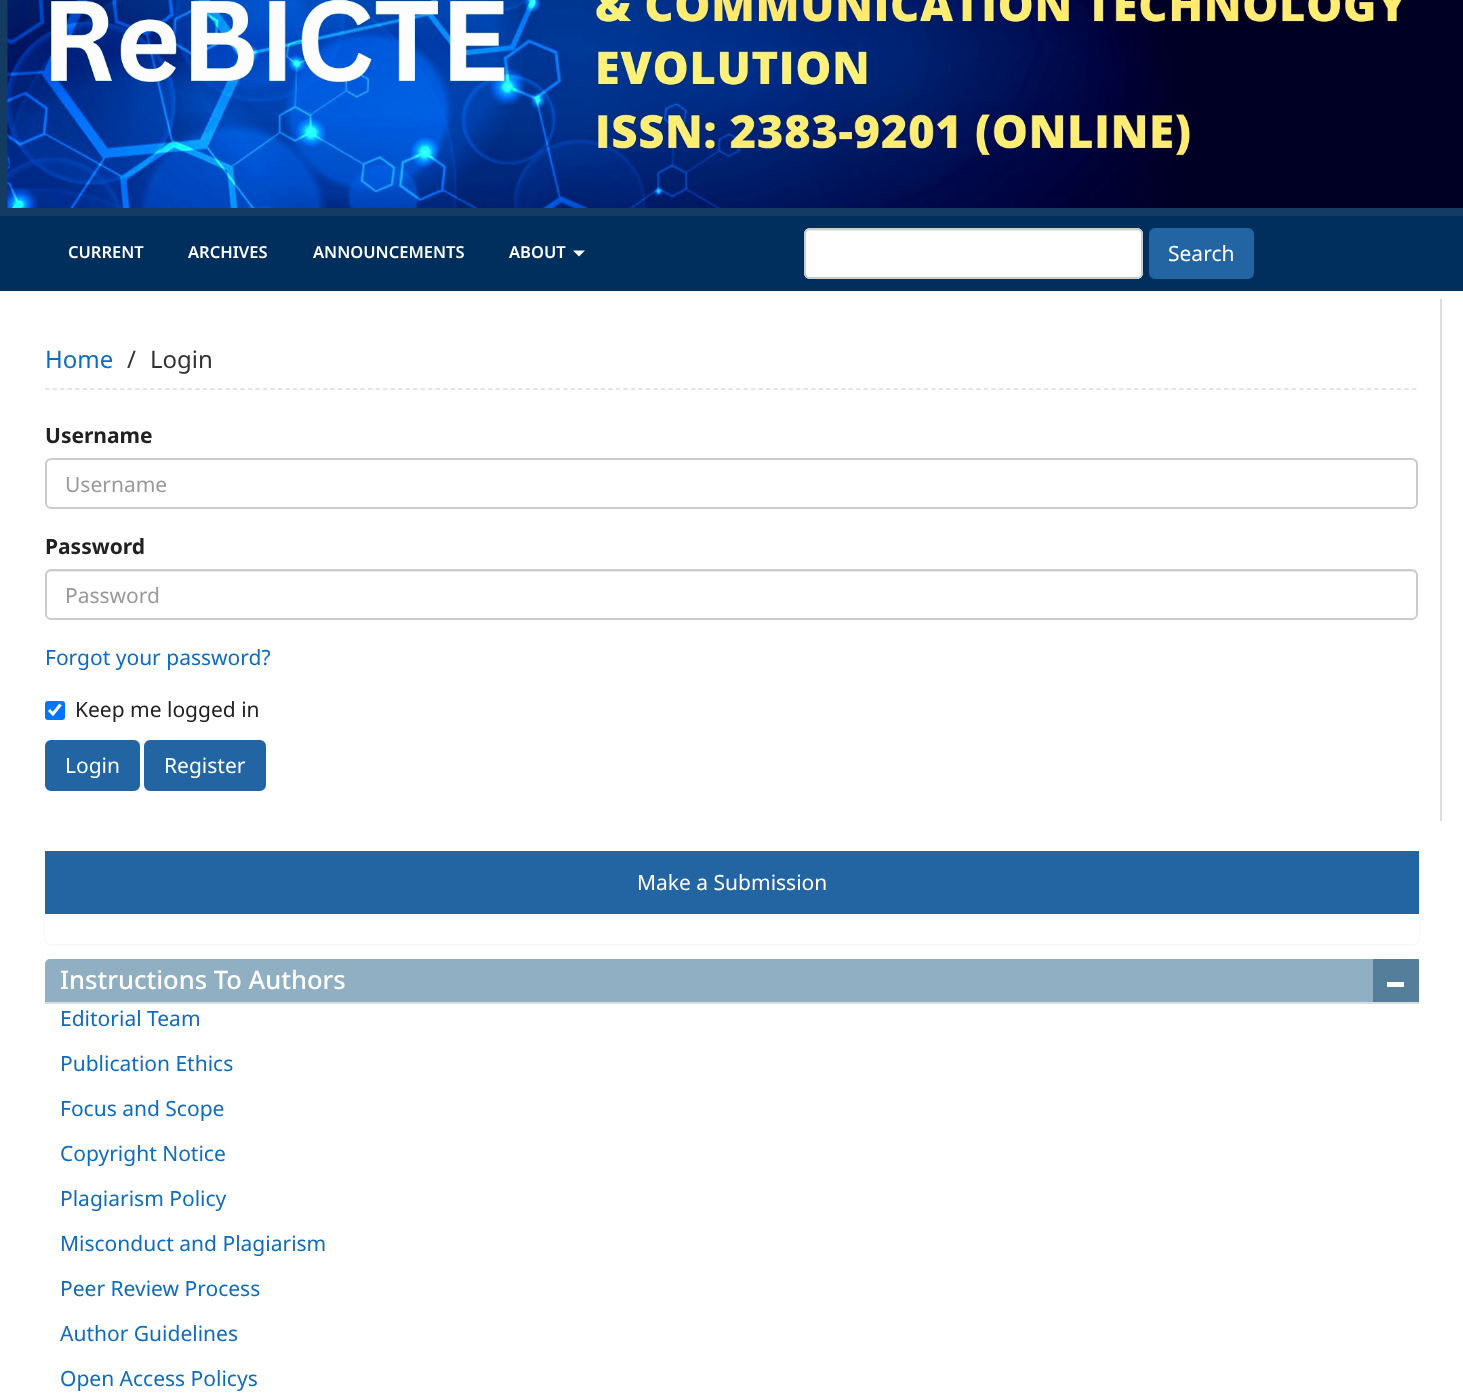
<!DOCTYPE html>
<meta charset="utf-8">
<style>body { margin: 0 } canvas { display: block }</style>
<canvas id="canvas" width="1463" height="1400"></canvas>
<script type="module">
  const canvas = document.getElementById("canvas");
  const g = canvas.getContext("2d");
  g.miterLimit = 4;
  g.fontKerning = "normal";
  function drawText(s, x, y, [font, color]) {
    g.font = font;
    g.fillStyle = color;
    g.fillText(s, x, y);
  }
  function fillBox(x, y, w, h, color) {
    g.fillStyle = color;
    g.fillRect(x, y, w, h);
  }
  function fillRounded(x, y, w, h, r, color) {
    g.fillStyle = color;
    g.beginPath();
    g.roundRect(x, y, w, h, r);
    g.fill();
  }
  async function drawPicture(src, x, y, w, h) {
    const img = new Image();
    img.src = src;
    await img.decode();
    g.drawImage(img, x, y, w, h);
  }

  const s1 = ["600 16.5px Noto Sans", "#FFFFFF"];
  const s2 = ["21px Noto Sans", "#FFFFFF"];
  const s3 = ["24px Noto Sans", "#0E6BBD"];
  const s4 = ["24px Noto Sans", "#333333"];
  const s5 = ["bold 21px Noto Sans", "#212121"];
  const s6 = ["21px Noto Sans", "#999999"];
  const s7 = ["21px Noto Sans", "#0E6BBD"];
  const s8 = ["21px Noto Sans", "#212121"];
  const s9 = ["500 25.5px Noto Sans", "#FFFFFF"];

  fillBox(0, 0, 1463, 1400, "#FFFFFF");
  fillBox(0, 0, 1463, 216, "#143C62");
  await drawPicture("pic1.png", 7, 0, 1456, 208);
  fillBox(0, 216, 1463, 75, "#002F5D");
  drawText("CURRENT", 68, 258, s1);
  drawText("ARCHIVES", 188, 258, s1);
  drawText("ANNOUNCEMENTS", 313, 258, s1);
  drawText("ABOUT", 509, 258, s1);
  g.beginPath();
  g.moveTo(573, 250.5);
  g.lineTo(585, 250.5);
  g.lineTo(579, 256.5);
  g.closePath();
  g.fill();
  fillRounded(804, 228, 339, 51, 6, "#FFFFFF");
  g.fillStyle = "#ECECEC";
  g.beginPath();
  g.moveTo(810, 231);
  g.lineTo(1137, 231);
  g.bezierCurveTo(1139, 231, 1142, 233, 1142, 236);
  g.bezierCurveTo(1142, 233, 1140, 230, 1137, 230);
  g.lineTo(811, 230);
  g.bezierCurveTo(808, 230, 806, 233, 806, 236);
  g.bezierCurveTo(806, 233, 808, 231, 810, 231);
  g.closePath();
  g.fill();
  g.beginPath();
  g.roundRect(805, 229, 337, 49, 5);
  g.strokeStyle = "#CCCCCC";
  g.lineWidth = 2;
  g.stroke();
  g.fillStyle = "#2364A2";
  g.beginPath();
  g.roundRect(1150, 229, 103, 49, 5);
  g.fill();
  g.strokeStyle = "#2364A2";
  g.stroke();
  drawText("Search", 1168, 261, s2);
  fillBox(1440, 299, 2, 522, "#DDDDDD");
  g.beginPath();
  g.moveTo(45, 389);
  g.lineTo(1417.5, 389);
  g.strokeStyle = "#DDDDDD";
  g.lineWidth = 1.5;
  g.setLineDash([4.5, 3.01]);
  g.stroke();
  drawText("Home", 45, 368, s3);
  drawText("/", 127, 368, s4);
  drawText("Login", 150, 368, s4);
  drawText("Username", 45, 443, s5);
  g.fillStyle = "#ECECEC";
  g.beginPath();
  g.moveTo(51, 460);
  g.lineTo(1412, 460);
  g.bezierCurveTo(1414, 460, 1416, 463, 1416, 465);
  g.lineTo(1416, 464);
  g.bezierCurveTo(1416, 461, 1414, 459, 1411, 459);
  g.lineTo(52, 459);
  g.bezierCurveTo(50, 459, 48, 460, 47, 462);
  g.bezierCurveTo(48, 461, 50, 460, 51, 460);
  g.closePath();
  g.fill();
  g.beginPath();
  g.roundRect(46, 459, 1371, 49, 5);
  g.strokeStyle = "#CCCCCC";
  g.lineWidth = 2;
  g.setLineDash([]);
  g.stroke();
  drawText("Username", 65, 492, s6);
  drawText("Password", 45, 554, s5);
  g.fillStyle = "#ECECEC";
  g.beginPath();
  g.moveTo(51, 572);
  g.lineTo(1412, 572);
  g.bezierCurveTo(1414, 572, 1416, 574, 1416, 576);
  g.lineTo(1416, 575);
  g.bezierCurveTo(1416, 572, 1414, 570, 1411, 570);
  g.lineTo(52, 570);
  g.bezierCurveTo(50, 570, 48, 572, 47, 574);
  g.bezierCurveTo(48, 573, 50, 572, 51, 572);
  g.closePath();
  g.fill();
  g.beginPath();
  g.roundRect(46, 570, 1371, 49, 5);
  g.stroke();
  drawText("Password", 65, 603, s6);
  drawText("Forgot your password?", 45, 665, s7);
  fillRounded(45, 701, 20, 19, 3, "#0075FF");
  g.beginPath();
  g.moveTo(49, 710);
  g.lineTo(53, 714);
  g.lineTo(60.5, 704.5);
  g.strokeStyle = "#FFFFFF";
  g.lineWidth = 3.1;
  g.stroke();
  drawText("Keep me logged in", 75, 717, s8);
  g.fillStyle = "#2364A2";
  g.beginPath();
  g.roundRect(46, 741, 93, 49, 5);
  g.fill();
  g.strokeStyle = "#2364A2";
  g.lineWidth = 2;
  g.stroke();
  drawText("Login", 65, 773, s2);
  g.fillStyle = "#2364A2";
  g.beginPath();
  g.roundRect(145, 741, 120, 49, 5);
  g.fill();
  g.stroke();
  drawText("Register", 164, 773, s2);
  g.fillStyle = "rgba(0, 0, 0, 0.05)";
  g.filter = "blur(1px)";
  g.beginPath();
  g.roundRect(45, 852, 1374, 93, 6);
  g.fill();
  g.filter = "none";
  fillRounded(45, 851, 1374, 93, 6, "#FFFFFF");
  fillBox(45, 851, 1374, 63, "#2364A2");
  drawText("Make a Submission", 637, 890, s2);
  g.fillStyle = "#91AFC3";
  g.beginPath();
  g.roundRect(45, 959, 1374, 45, [5, 5, 0, 0]);
  g.fill();
  fillBox(45, 1002, 1374, 2, "#DDDDDD");
  drawText("Instructions To Authors", 60, 989, s9);
  fillBox(1373, 959, 46, 43, "#547E9A");
  fillBox(1387, 982, 17, 5, "#FFFFFF");
  drawText("Editorial Team", 60, 1026, s7);
  drawText("Publication Ethics", 60, 1071, s7);
  drawText("Focus and Scope", 60, 1116, s7);
  drawText("Copyright Notice", 60, 1161, s7);
  drawText("Plagiarism Policy", 60, 1206, s7);
  drawText("Misconduct and Plagiarism", 60, 1251, s7);
  drawText("Peer Review Process", 60, 1296, s7);
  drawText("Author Guidelines", 60, 1341, s7);
  drawText("Open Access Policys", 60, 1386, s7);
</script>
